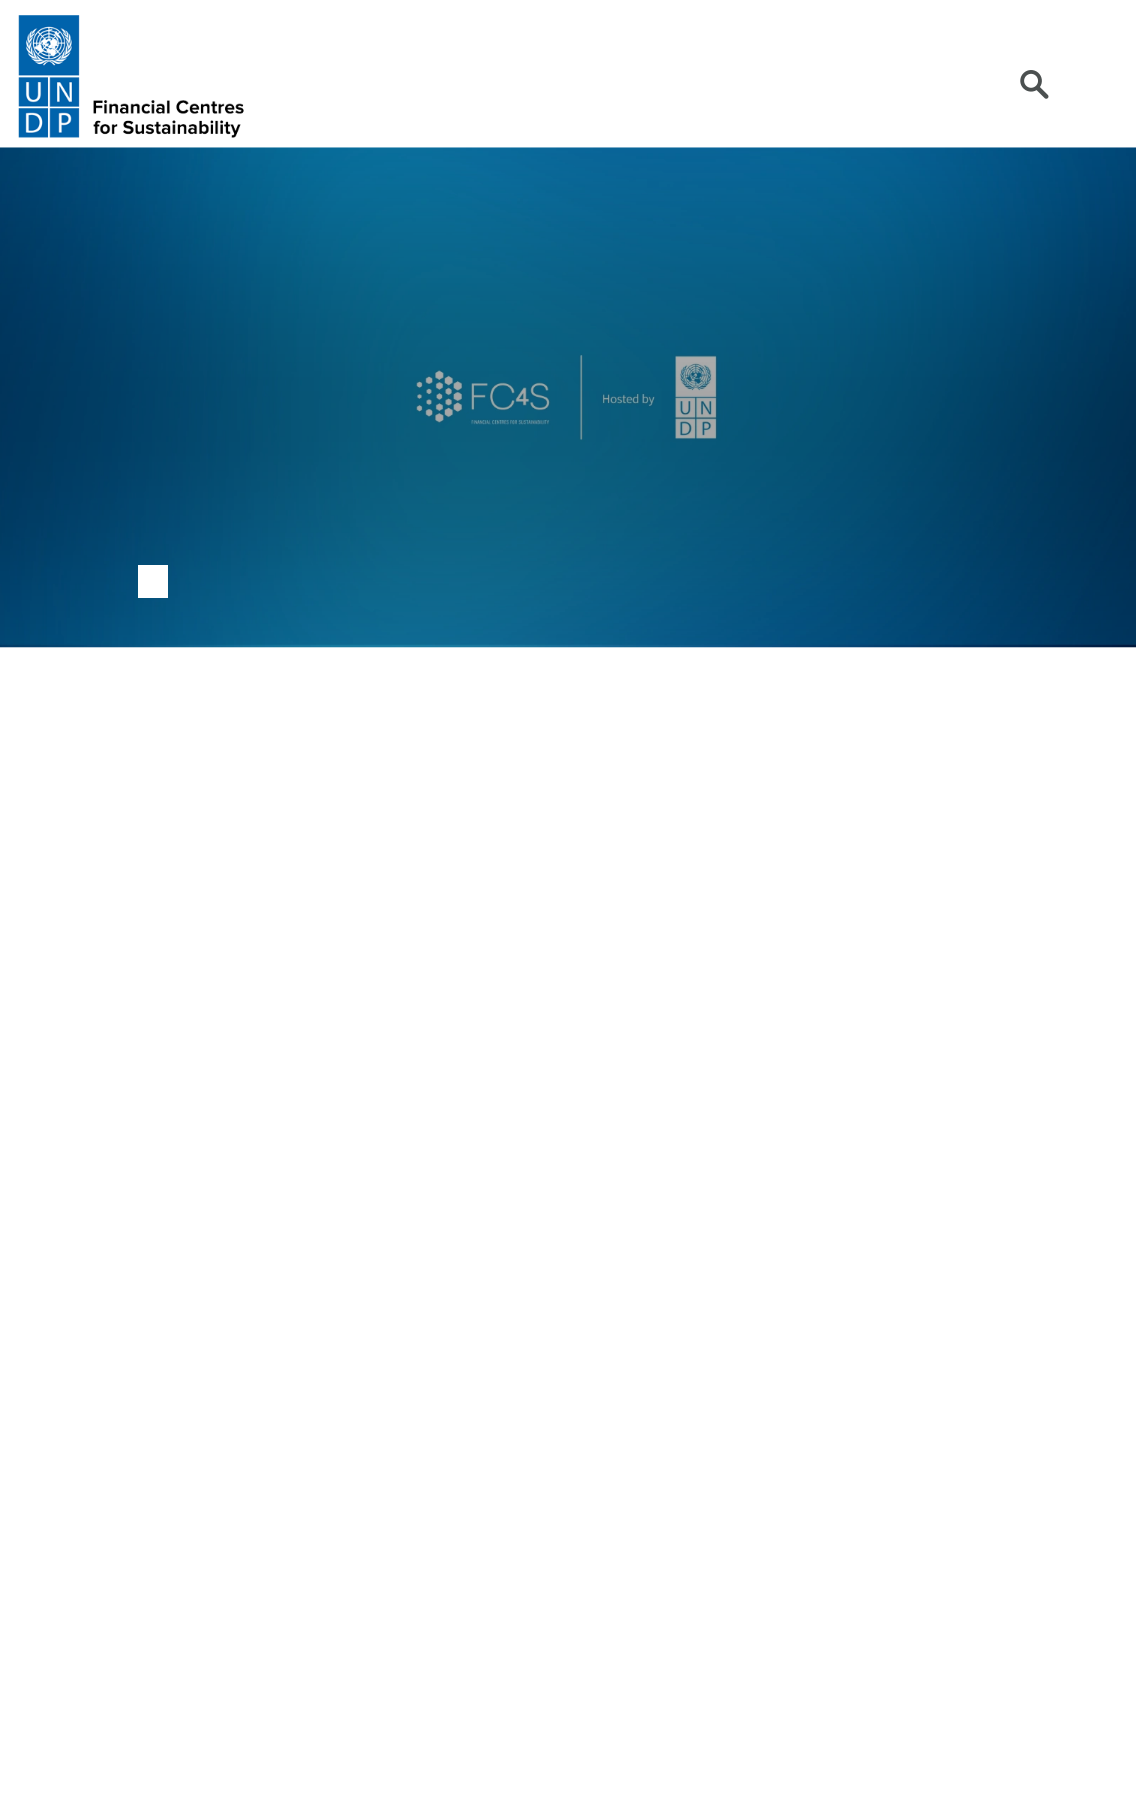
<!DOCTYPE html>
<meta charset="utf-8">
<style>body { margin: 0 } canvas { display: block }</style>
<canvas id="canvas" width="1136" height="1815"></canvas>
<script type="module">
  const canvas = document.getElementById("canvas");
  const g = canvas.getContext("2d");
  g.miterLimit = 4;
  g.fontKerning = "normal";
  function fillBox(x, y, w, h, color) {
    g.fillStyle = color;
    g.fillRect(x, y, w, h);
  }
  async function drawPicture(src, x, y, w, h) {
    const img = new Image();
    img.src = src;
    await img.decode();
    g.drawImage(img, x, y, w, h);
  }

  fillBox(0, 0, 1136, 1815, "#FFFFFF");
  await drawPicture("pic1.png", 18, 15, 226, 123);
  await drawPicture("pic2.png", 1020, 70, 29, 29);
  await drawPicture("pic3.png", 0, 147, 1136, 501);
  await drawPicture("pic4.png", 0, 147, 1136, 501);
  fillBox(138, 565, 30, 33, "#FFFFFF");
</script>
